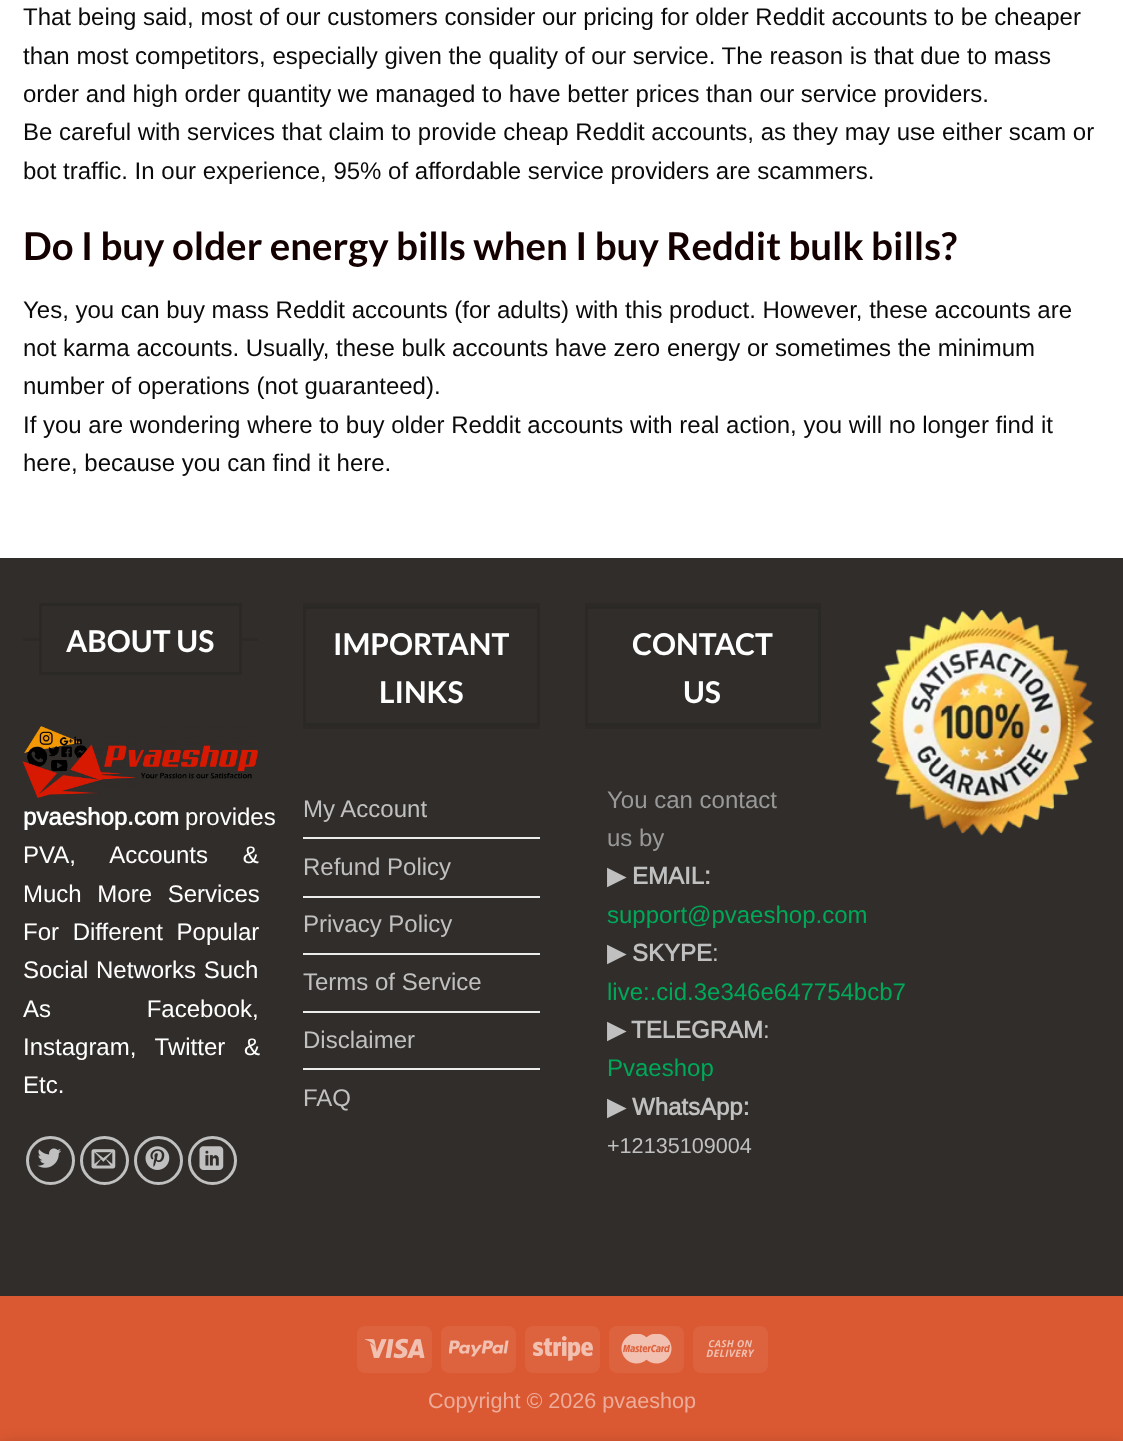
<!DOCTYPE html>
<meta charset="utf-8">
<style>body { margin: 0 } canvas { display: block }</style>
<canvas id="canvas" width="1123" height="1441"></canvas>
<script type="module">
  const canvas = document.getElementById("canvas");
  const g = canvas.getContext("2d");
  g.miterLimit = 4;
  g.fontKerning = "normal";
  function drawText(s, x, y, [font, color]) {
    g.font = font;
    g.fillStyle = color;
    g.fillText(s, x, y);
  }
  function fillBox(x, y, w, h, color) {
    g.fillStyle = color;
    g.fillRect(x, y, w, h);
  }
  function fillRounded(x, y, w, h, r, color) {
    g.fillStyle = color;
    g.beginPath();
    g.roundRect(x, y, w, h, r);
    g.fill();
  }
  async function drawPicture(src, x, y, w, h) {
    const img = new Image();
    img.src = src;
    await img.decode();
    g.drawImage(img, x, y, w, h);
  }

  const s1 = ["24px Arimo", "#0A0A0A"];
  const s2 = ["bold 38.4px Lato", "#140000"];
  const s3 = ["bold 30px Lato", "#FFFFFF"];
  const s4 = ["bold 24px Arimo", "#FFFFFF"];
  const s5 = ["24px Arimo", "#FFFFFF"];
  const s6 = ["24px Arimo", "#C0C0C0"];
  const s7 = ["24px Arimo", "#999999"];
  const s8 = ["bold 24px DejaVu Sans", "#C0C0C0"];
  const s9 = ["bold 24px Arimo", "#C0C0C0"];
  const s10 = ["24px Arimo", "#00A859"];
  const s11 = ["21.6px Arimo", "#C0C0C0"];
  const s12 = ["21.6px Arimo", "#EDAC99"];

  fillBox(0, 0, 1123, 1441, "#FFFFFF");
  drawText("That being said, most of our customers consider our pricing for older Reddit accounts to be cheaper", 23, 25, s1);
  drawText("than most competitors, especially given the quality of our service. The reason is that due to mass", 23, 64, s1);
  drawText("order and high order quantity we managed to have better prices than our service providers.", 23, 102, s1);
  drawText("Be careful with services that claim to provide cheap Reddit accounts, as they may use either scam or", 23, 140, s1);
  drawText("bot traffic. In our experience, 95% of affordable service providers are scammers.", 23, 179, s1);
  drawText("Do I buy older energy bills when I buy Reddit bulk bills?", 23, 260, s2);
  drawText("Yes, you can buy mass Reddit accounts (for adults) with this product. However, these accounts are", 23, 318, s1);
  drawText("not karma accounts. Usually, these bulk accounts have zero energy or sometimes the minimum", 23, 356, s1);
  drawText("number of operations (not guaranteed).", 23, 394, s1);
  drawText("If you are wondering where to buy older Reddit accounts with real action, you will no longer find it", 23, 433, s1);
  drawText("here, because you can find it here.", 23, 471, s1);
  fillBox(0, 558, 1123, 738, "#302D2A");
  fillBox(23, 638, 16, 3, "#2D2926");
  g.strokeStyle = "#2B2926";
  g.lineWidth = 3;
  g.strokeRect(40.5, 604.5, 200, 69);
  drawText("ABOUT US", 66, 652, s3);
  fillBox(242, 638, 16, 3, "#2D2926");
  await drawPicture("pic1.png", 22, 726, 236, 72);
  drawText("pvaeshop.com", 23, 825, s4);
  drawText("provides", 185, 825, s5);
  g.wordSpacing = "28px";
  drawText("PVA, Accounts &", 23, 863, s5);
  g.wordSpacing = "9px";
  drawText("Much More Services", 23, 902, s5);
  g.wordSpacing = "7px";
  drawText("For Different Popular", 23, 940, s5);
  g.wordSpacing = "1px";
  drawText("Social Networks Such", 23, 978, s5);
  g.wordSpacing = "89px";
  drawText("As Facebook,", 23, 1017, s5);
  g.wordSpacing = "12px";
  drawText("Instagram, Twitter &", 23, 1055, s5);
  g.wordSpacing = "0px";
  drawText("Etc.", 23, 1093, s5);
  g.beginPath();
  g.arc(50.5, 1160.5, 23, 0, Math.PI * 2);
  g.strokeStyle = "#C0C0C0";
  g.stroke();
  await drawPicture("pic2.png", 37, 1148, 25, 20);
  g.beginPath();
  g.arc(104.5, 1160.5, 23, 0, Math.PI * 2);
  g.stroke();
  await drawPicture("pic3.png", 91, 1149, 25, 20);
  g.beginPath();
  g.arc(158.5, 1160.5, 23, 0, Math.PI * 2);
  g.stroke();
  await drawPicture("pic4.png", 145, 1146, 25, 24);
  g.beginPath();
  g.arc(212.5, 1160.5, 23, 0, Math.PI * 2);
  g.stroke();
  await drawPicture("pic5.png", 199, 1146, 25, 24);
  fillBox(303, 603, 237, 3, "#2D2926");
  g.strokeStyle = "#2B2926";
  g.strokeRect(304.5, 607.5, 234, 117);
  drawText("IMPORTANT", 333, 655, s3);
  drawText("LINKS", 379, 703, s3);
  fillBox(303, 726, 237, 3, "#2D2926");
  drawText("My Account", 303, 817, s6);
  fillBox(303, 837, 237, 2, "#ECECEC");
  drawText("Refund Policy", 303, 875, s6);
  fillBox(303, 896, 237, 2, "#ECECEC");
  drawText("Privacy Policy", 303, 932, s6);
  fillBox(303, 953, 237, 2, "#ECECEC");
  drawText("Terms of Service", 303, 990, s6);
  fillBox(303, 1011, 237, 2, "#ECECEC");
  drawText("Disclaimer", 303, 1048, s6);
  fillBox(303, 1068, 237, 2, "#ECECEC");
  drawText("FAQ", 303, 1106, s6);
  fillBox(585, 603, 236, 3, "#2D2926");
  g.strokeRect(586.5, 607.5, 233, 117);
  drawText("CONTACT", 632, 655, s3);
  drawText("US", 683, 703, s3);
  fillBox(585, 726, 236, 3, "#2D2926");
  drawText("You can contact", 607, 808, s7);
  drawText("us by", 607, 846, s7);
  drawText("▶", 607, 884, s8);
  drawText("EMAIL:", 632, 884, s9);
  drawText("support@pvaeshop.com", 607, 923, s10);
  drawText("▶", 607, 961, s8);
  drawText("SKYPE", 632, 961, s9);
  drawText(":", 712, 961, s6);
  drawText("live:.cid.3e346e647754bcb7", 607, 1000, s10);
  drawText("▶", 607, 1038, s8);
  drawText("TELEGRAM", 631, 1038, s9);
  drawText(":", 763, 1038, s6);
  drawText("Pvaeshop", 607, 1076, s10);
  drawText("▶", 607, 1115, s8);
  drawText("WhatsApp:", 632, 1115, s9);
  drawText("+12135109004", 607, 1153, s11);
  await drawPicture("pic6.png", 870, 610, 225, 226);
  fillBox(0, 1296, 1123, 145, "#DB5932");
  fillRounded(357, 1326, 75, 47, 8, "#DD633E");
  await drawPicture("pic7.png", 365, 1338, 60, 21);
  fillRounded(441, 1326, 75, 47, 8, "#DD633E");
  await drawPicture("pic8.png", 449, 1340, 60, 17);
  fillRounded(525, 1326, 75, 47, 8, "#DD633E");
  await drawPicture("pic9.png", 533, 1336, 60, 25);
  fillRounded(609, 1326, 75, 47, 8, "#DD633E");
  await drawPicture("pic10.png", 621, 1334, 51, 30);
  fillRounded(693, 1326, 75, 47, 8, "#DD633E");
  await drawPicture("pic11.png", 706, 1340, 49, 17);
  drawText("Copyright © 2026 pvaeshop", 428, 1408, s12);
  g.fillStyle = "rgba(0, 0, 0, 0.14)";
  g.filter = "blur(7px)";
  g.beginPath();
  g.rect(0, 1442, 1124, 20);
  g.fill();
  g.filter = "none";
</script>
